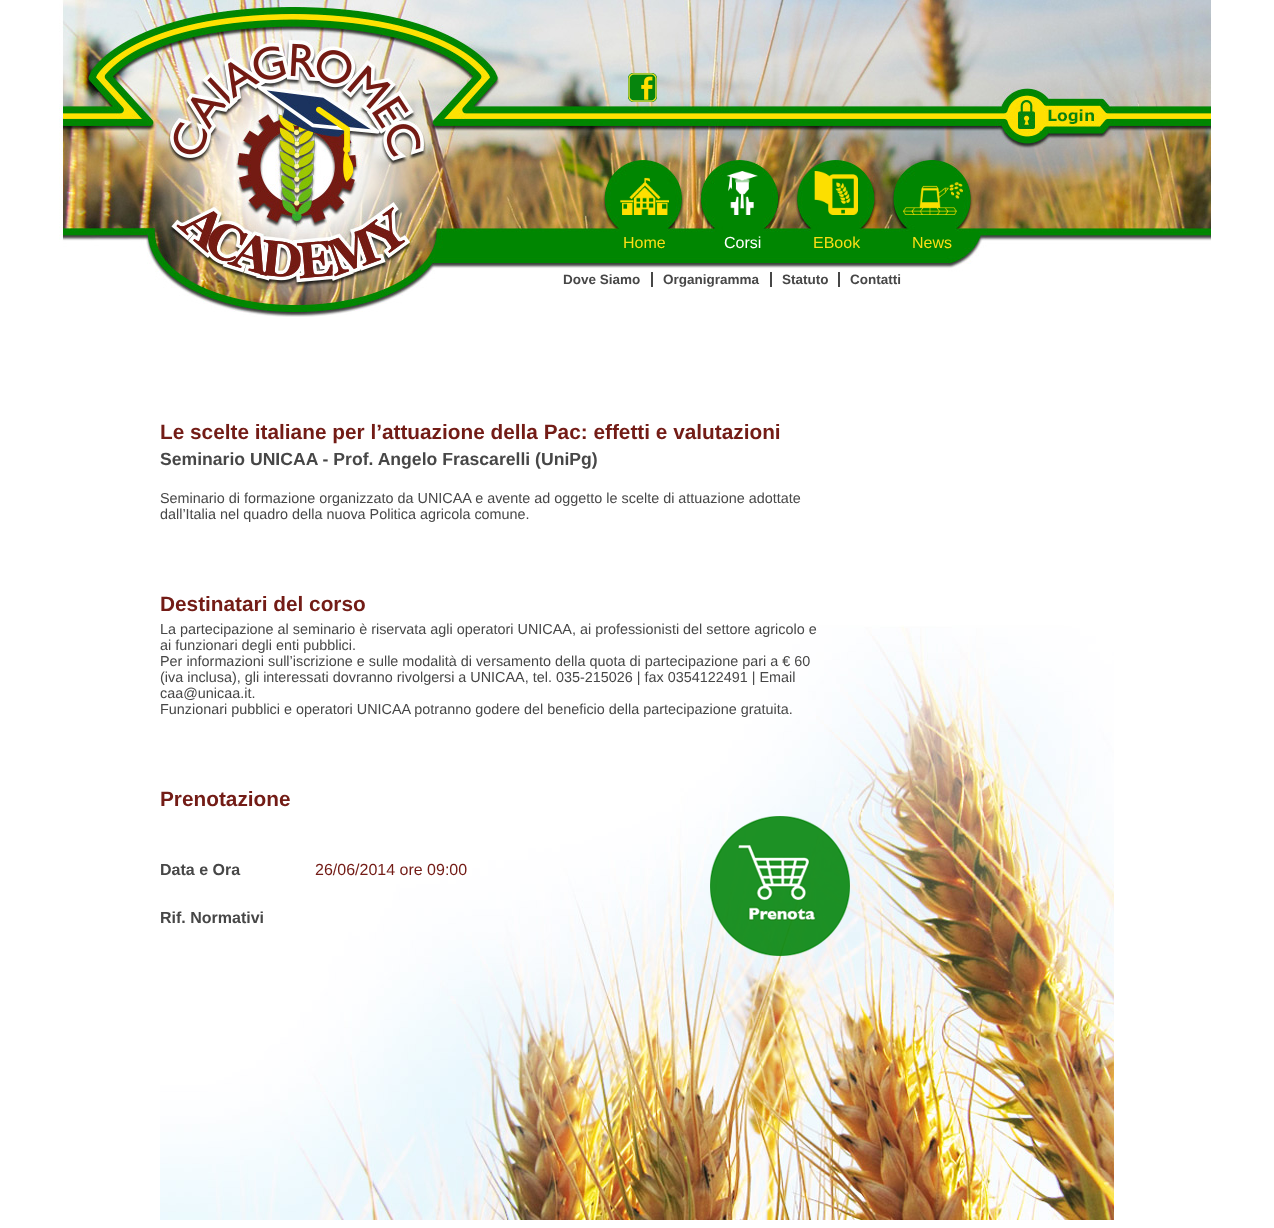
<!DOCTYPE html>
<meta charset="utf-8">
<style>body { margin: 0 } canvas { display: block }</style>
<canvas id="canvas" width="1274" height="1228"></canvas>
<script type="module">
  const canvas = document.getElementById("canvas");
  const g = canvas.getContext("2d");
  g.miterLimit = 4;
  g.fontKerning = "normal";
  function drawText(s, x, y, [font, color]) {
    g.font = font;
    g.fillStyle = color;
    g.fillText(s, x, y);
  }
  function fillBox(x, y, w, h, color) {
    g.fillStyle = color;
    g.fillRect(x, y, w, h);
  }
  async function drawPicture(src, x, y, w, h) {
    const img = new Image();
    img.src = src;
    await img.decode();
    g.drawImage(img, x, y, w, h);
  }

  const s1 = ["16px Liberation Sans", "#FBDE16"];
  const s2 = ["16px Liberation Sans", "#FFFFFF"];
  const s3 = ["bold 13.5px Liberation Sans", "#474747"];
  const s4 = ["bold 20.8px Liberation Sans", "#731C16"];
  const s5 = ["bold 17.6px Liberation Sans", "#474747"];
  const s6 = ["14.4px Liberation Sans", "#474747"];
  const s7 = ["bold 16px Liberation Sans", "#474747"];
  const s8 = ["16px Liberation Sans", "#731C16"];

  fillBox(0, 0, 1274, 1228, "#FFFFFF");
  await drawPicture("pic1.png", 59, 0, 1152, 317);
  await drawPicture("pic2.png", 628, 73, 29, 29);
  await drawPicture("pic3.png", 620, 177, 49, 38);
  drawText("Home", 623, 248, s1);
  await drawPicture("pic4.png", 726, 171, 32, 44);
  drawText("Corsi", 724, 248, s2);
  await drawPicture("pic5.png", 814, 171, 44, 44);
  drawText("EBook", 813, 248, s1);
  await drawPicture("pic6.png", 903, 182, 60, 33);
  drawText("News", 912, 248, s1);
  drawText("Dove Siamo", 563, 284, s3);
  fillBox(651, 272, 2, 15, "#474747");
  drawText("Organigramma", 663, 284, s3);
  fillBox(770, 272, 2, 15, "#474747");
  drawText("Statuto", 782, 284, s3);
  fillBox(838, 272, 2, 15, "#474747");
  drawText("Contatti", 850, 284, s3);
  await drawPicture("pic7.png", 160, 625, 954, 595);
  drawText("Le scelte italiane per l’attuazione della Pac: effetti e valutazioni", 160, 439, s4);
  drawText("Seminario UNICAA - Prof. Angelo Frascarelli (UniPg)", 160, 465, s5);
  drawText("Seminario di formazione organizzato da UNICAA e avente ad oggetto le scelte di attuazione adottate", 160, 503, s6);
  drawText("dall’Italia nel quadro della nuova Politica agricola comune.", 160, 519, s6);
  drawText("Destinatari del corso", 160, 611, s4);
  drawText("La partecipazione al seminario è riservata agli operatori UNICAA, ai professionisti del settore agricolo e", 160, 634, s6);
  drawText("ai funzionari degli enti pubblici.", 160, 650, s6);
  drawText("Per informazioni sull’iscrizione e sulle modalità di versamento della quota di partecipazione pari a € 60", 160, 666, s6);
  drawText("(iva inclusa), gli interessati dovranno rivolgersi a UNICAA, tel. 035-215026 | fax 0354122491 | Email", 160, 682, s6);
  drawText("caa@unicaa.it.", 160, 698, s6);
  drawText("Funzionari pubblici e operatori UNICAA potranno godere del beneficio della partecipazione gratuita.", 160, 714, s6);
  drawText("Prenotazione", 160, 806, s4);
  drawText("Data e Ora", 160, 875, s7);
  drawText("26/06/2014 ore 09:00", 315, 875, s8);
  drawText("Rif. Normativi", 160, 923, s7);
  await drawPicture("pic8.png", 710, 816, 140, 140);
</script>
